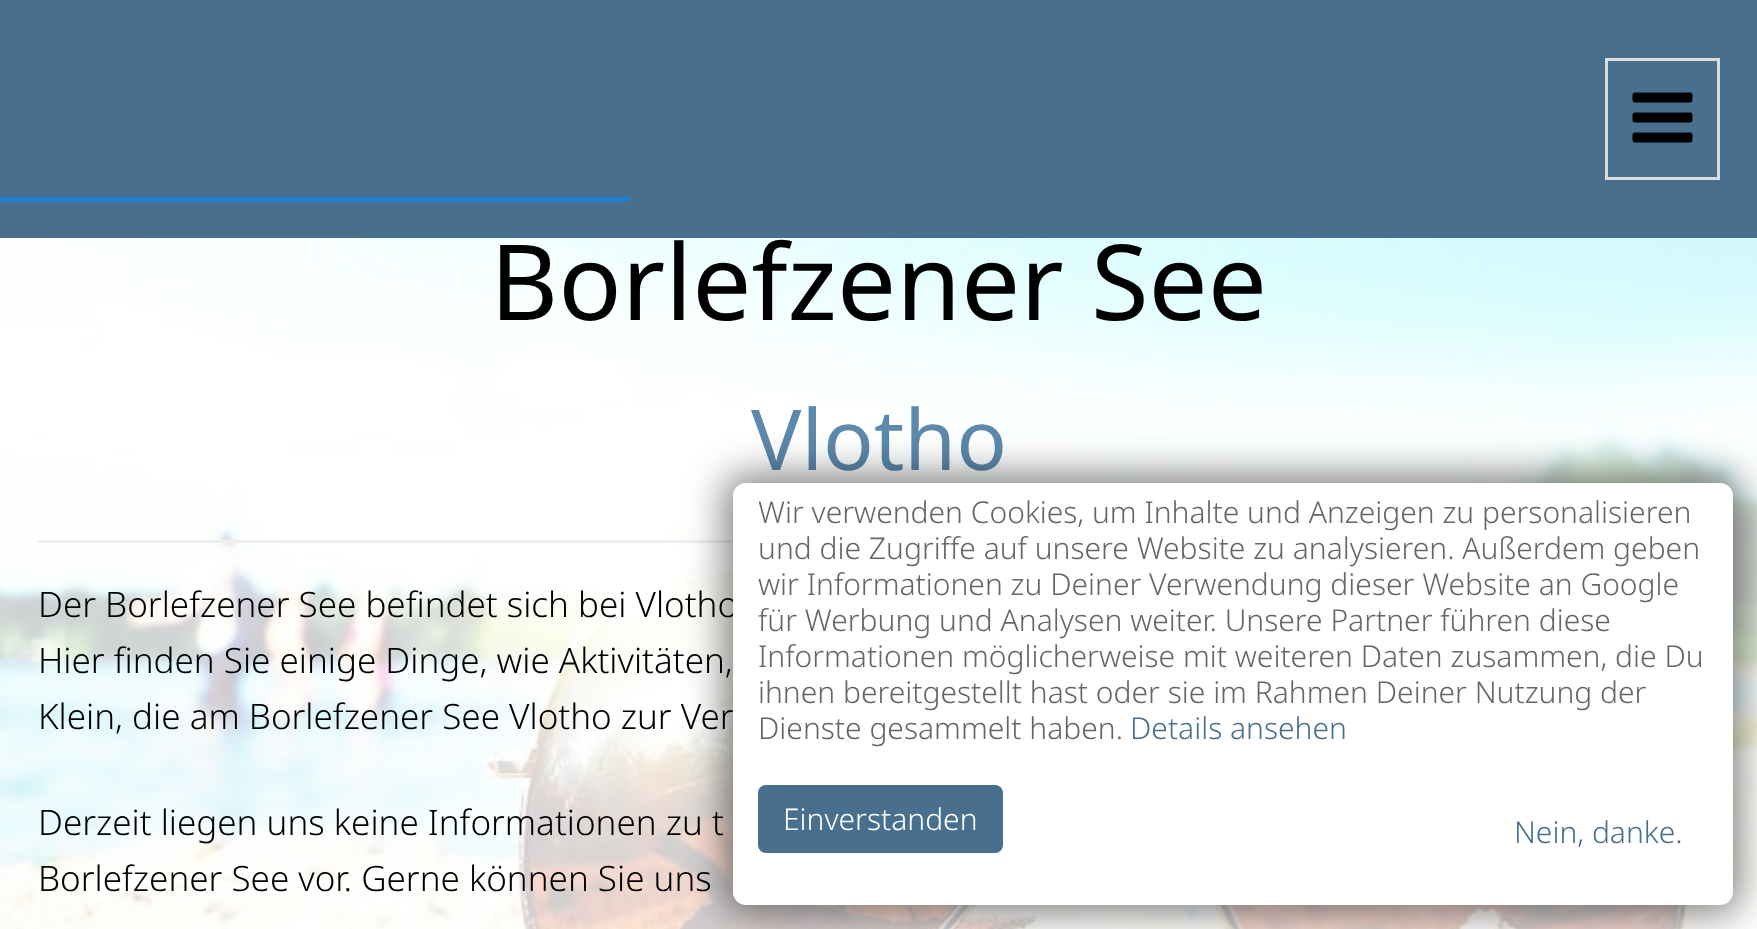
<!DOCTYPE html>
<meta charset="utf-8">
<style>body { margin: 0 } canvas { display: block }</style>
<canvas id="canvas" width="1757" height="929"></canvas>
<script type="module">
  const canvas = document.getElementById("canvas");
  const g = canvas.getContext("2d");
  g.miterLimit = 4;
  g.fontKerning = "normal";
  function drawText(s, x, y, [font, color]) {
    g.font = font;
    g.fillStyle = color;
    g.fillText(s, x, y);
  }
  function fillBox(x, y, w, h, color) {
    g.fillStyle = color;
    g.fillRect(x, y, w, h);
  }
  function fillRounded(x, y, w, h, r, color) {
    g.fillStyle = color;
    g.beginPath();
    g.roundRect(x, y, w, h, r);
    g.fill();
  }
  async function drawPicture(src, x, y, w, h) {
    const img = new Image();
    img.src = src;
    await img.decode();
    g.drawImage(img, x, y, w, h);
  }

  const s1 = ["105px Noto Sans", "#000000"];
  const s2 = ["84px Noto Sans", "#5C89AC"];
  const s3 = ["300 35px Noto Sans", "#000000"];
  const s4 = ["300 30px Noto Sans", "#666666"];
  const s5 = ["300 30px Noto Sans", "#486F8D"];
  const s6 = ["300 30px Noto Sans", "#FFFFFF"];

  fillBox(0, 0, 1757, 929, "#FFFFFF");
  await drawPicture("pic1.png", 0, 238, 1757, 691);
  fillBox(0, 0, 1757, 238, "#486F8D");
  g.strokeStyle = "#DDDDDD";
  g.lineWidth = 3;
  g.strokeRect(1606.5, 59.5, 112, 119);
  await drawPicture("pic2.png", 1632, 92, 61, 51);
  fillBox(0, 198, 630, 3, "#0786F5");
  drawText("Borlefzener See", 490, 320, s1);
  drawText("Vlotho", 751, 470, s2);
  fillBox(38, 540, 695, 3, "#EEEEEE");
  drawText("Der Borlefzener See befindet sich bei Vlotho", 38, 617, s3);
  drawText("Hier finden Sie einige Dinge, wie Aktivitäten,", 38, 673, s3);
  drawText("Klein, die am Borlefzener See Vlotho zur Ver", 38, 729, s3);
  drawText("Derzeit liegen uns keine Informationen zu t", 38, 835, s3);
  drawText("Borlefzener See vor. Gerne können Sie uns", 38, 891, s3);
  g.fillStyle = "rgba(0, 0, 0, 0.5)";
  g.filter = "blur(19px)";
  g.beginPath();
  g.roundRect(725, 475, 1015, 438, 20);
  g.fill();
  g.filter = "none";
  fillRounded(733, 483, 1000, 422, 13, "#FFFFFF");
  drawText("Wir verwenden Cookies, um Inhalte und Anzeigen zu personalisieren", 758, 523, s4);
  drawText("und die Zugriffe auf unsere Website zu analysieren. Außerdem geben", 758, 559, s4);
  drawText("wir Informationen zu Deiner Verwendung dieser Website an Google", 758, 595, s4);
  drawText("für Werbung und Analysen weiter. Unsere Partner führen diese", 758, 631, s4);
  drawText("Informationen möglicherweise mit weiteren Daten zusammen, die Du", 758, 667, s4);
  drawText("ihnen bereitgestellt hast oder sie im Rahmen Deiner Nutzung der", 758, 703, s4);
  drawText("Dienste gesammelt haben.", 758, 739, s4);
  drawText("Details ansehen", 1130, 739, s5);
  fillRounded(758, 785, 245, 68, 8, "#486F8D");
  drawText("Einverstanden", 783, 830, s6);
  drawText("Nein, danke.", 1514, 843, s5);
</script>
